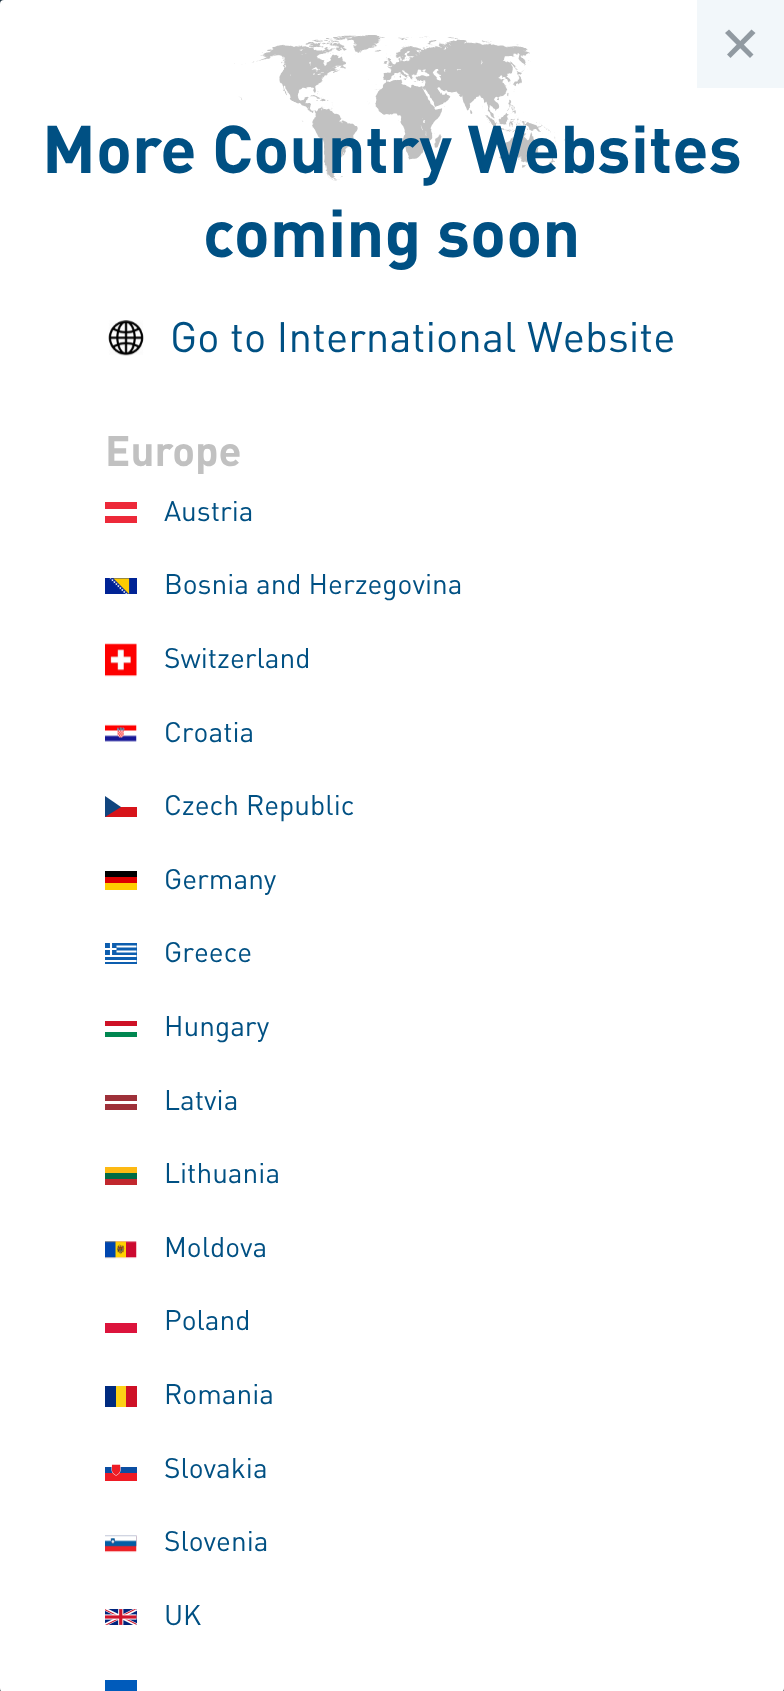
<!DOCTYPE html>
<meta charset="utf-8">
<style>body { margin: 0 } canvas { display: block }</style>
<canvas id="canvas" width="784" height="1691"></canvas>
<script type="module">
  const canvas = document.getElementById("canvas");
  const g = canvas.getContext("2d");
  g.miterLimit = 4;
  g.fontKerning = "normal";
  function drawText(s, x, y, [font, color]) {
    g.font = font;
    g.fillStyle = color;
    g.fillText(s, x, y);
  }
  function fillBox(x, y, w, h, color) {
    g.fillStyle = color;
    g.fillRect(x, y, w, h);
  }
  function fillRounded(x, y, w, h, r, color) {
    g.fillStyle = color;
    g.beginPath();
    g.roundRect(x, y, w, h, r);
    g.fill();
  }
  async function drawPicture(src, x, y, w, h) {
    const img = new Image();
    img.src = src;
    await img.decode();
    g.drawImage(img, x, y, w, h);
  }

  const s1 = ["bold 66.5px DIN", "#005083"];
  const s2 = ["42px DIN", "#005083"];
  const s3 = ["bold 42px DIN", "#C1C1C1"];
  const s4 = ["28px DIN", "#005083"];

  fillBox(0, 0, 784, 1691, "#51585D");
  fillBox(0, 0, 4, 4, "#1E323F");
  fillRounded(0, 0, 784, 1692, 4, "#FFFFFF");
  await drawPicture("pic1.png", 223, 35, 344, 146);
  fillBox(697, 0, 87, 88, "#F2F7FA");
  g.fillStyle = "#919AA1";
  g.beginPath();
  g.moveTo(725, 33);
  g.lineTo(729, 29.5);
  g.lineTo(753.5, 54.5);
  g.lineTo(750, 58);
  g.closePath();
  g.fill();
  g.beginPath();
  g.moveTo(751.5, 29.5);
  g.lineTo(755.5, 33);
  g.lineTo(730.5, 58);
  g.lineTo(727, 54.5);
  g.closePath();
  g.fill();
  drawText("More Country Websites", 42, 173, s1);
  drawText("coming soon", 203, 257, s1);
  await drawPicture("pic2.png", 108, 320, 36, 36);
  drawText("Go to International Website", 170, 352, s2);
  drawText("Europe", 105, 466, s3);
  fillBox(105, 502, 32, 21, "#ED2939");
  fillBox(105, 509, 32, 7, "#FFFFFF");
  drawText("Austria", 164, 521, s4);
  await drawPicture("pic3.png", 105, 578, 32, 16);
  drawText("Bosnia and Herzegovina", 164, 594, s4);
  await drawPicture("pic4.png", 105, 643, 32, 34);
  drawText("Switzerland", 164, 668, s4);
  await drawPicture("pic5.png", 105, 724, 32, 18);
  drawText("Croatia", 164, 742, s4);
  fillBox(105, 807, 32, 10, "#D7141A");
  g.fillStyle = "#11457E";
  g.beginPath();
  g.moveTo(121, 807);
  g.lineTo(105, 796);
  g.lineTo(105, 817);
  g.closePath();
  g.fill();
  drawText("Czech Republic", 164, 815, s4);
  fillBox(105, 871, 32, 6, "#000000");
  fillBox(105, 877, 32, 6, "#DD0000");
  fillBox(105, 883, 32, 7, "#FFCE00");
  drawText("Germany", 164, 889, s4);
  fillBox(105, 943, 32, 21, "#0D5EAF");
  g.beginPath();
  g.moveTo(111, 943);
  g.lineTo(111, 956);
  g.moveTo(105, 949);
  g.lineTo(116.5, 949);
  g.moveTo(116.5, 946.5);
  g.lineTo(136.5, 946.5);
  g.moveTo(116.5, 951.5);
  g.lineTo(136.5, 951.5);
  g.moveTo(105, 956);
  g.lineTo(136.5, 956);
  g.moveTo(105, 961);
  g.lineTo(136.5, 961);
  g.strokeStyle = "#FFFFFF";
  g.lineWidth = 2.1;
  g.stroke();
  drawText("Greece", 164, 962, s4);
  fillBox(105, 1021, 32, 5, "#CE1126");
  fillBox(105, 1032, 32, 5, "#008751");
  drawText("Hungary", 164, 1036, s4);
  fillBox(105, 1095, 32, 15, "#9E3039");
  fillBox(105, 1101, 32, 3, "#FFFFFF");
  drawText("Latvia", 164, 1110, s4);
  fillBox(105, 1167, 32, 6, "#FDB913");
  fillBox(105, 1179, 32, 6, "#C1272D");
  fillBox(105, 1173, 32, 6, "#006A44");
  drawText("Lithuania", 164, 1183, s4);
  await drawPicture("pic6.png", 105, 1241, 32, 18);
  drawText("Moldova", 164, 1257, s4);
  fillBox(105, 1323, 32, 10, "#DC143C");
  drawText("Poland", 164, 1330, s4);
  fillBox(105, 1386, 11, 21, "#002B7F");
  fillBox(116, 1386, 10, 21, "#FCD116");
  fillBox(126, 1386, 11, 21, "#CE1126");
  drawText("Romania", 164, 1404, s4);
  await drawPicture("pic7.png", 105, 1464, 32, 17);
  drawText("Slovakia", 164, 1478, s4);
  await drawPicture("pic8.png", 105, 1535, 32, 18);
  drawText("Slovenia", 164, 1551, s4);
  await drawPicture("pic9.png", 105, 1609, 32, 16);
  drawText("UK", 164, 1625, s4);
  fillBox(105, 1680, 32, 11, "#005BBB");
</script>
